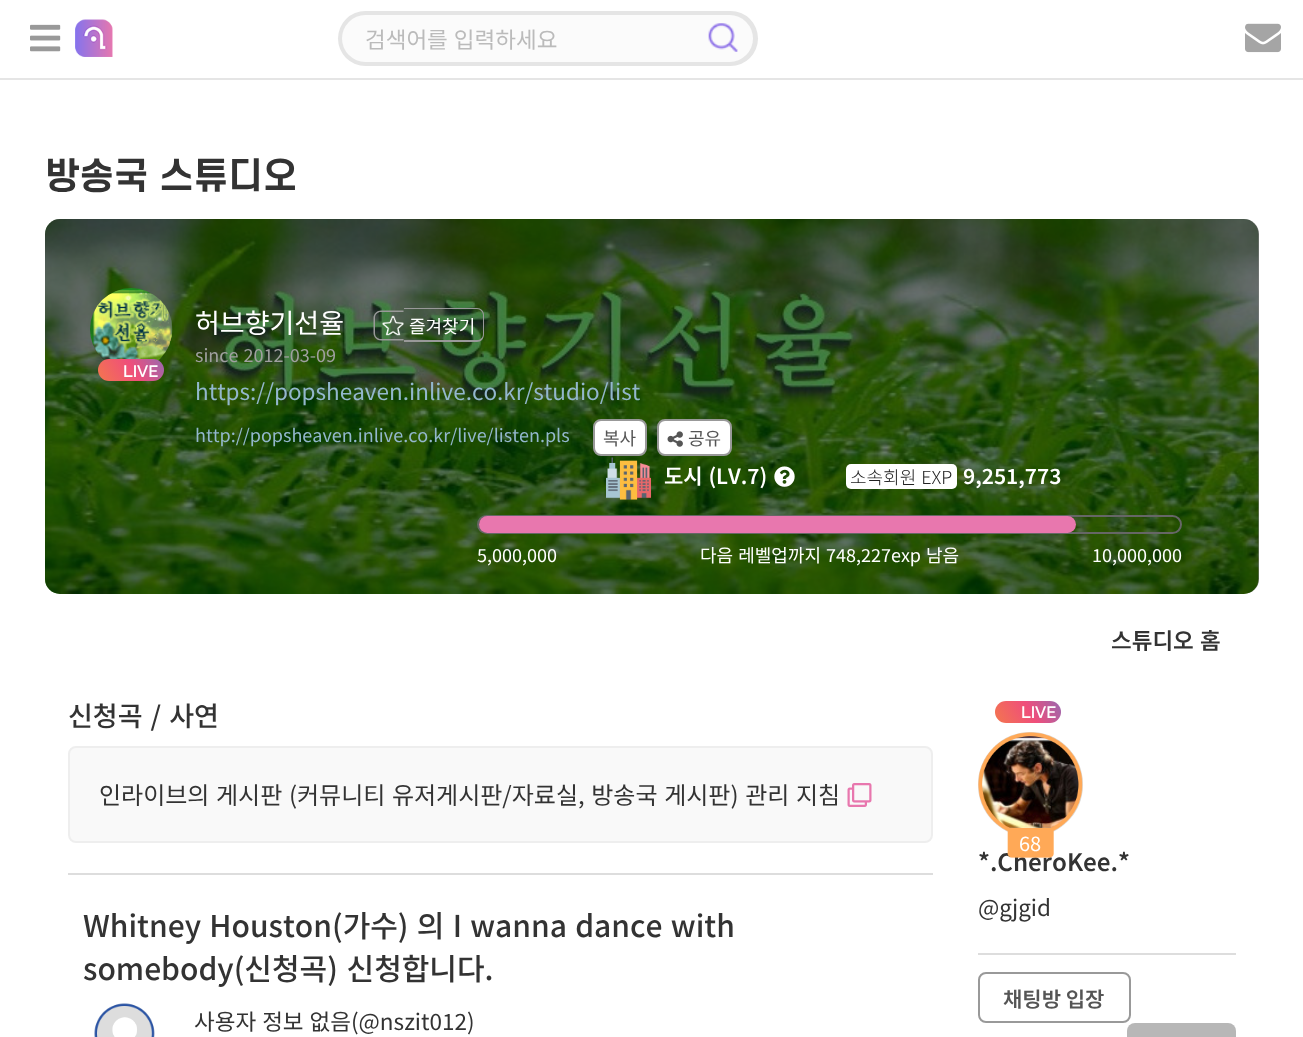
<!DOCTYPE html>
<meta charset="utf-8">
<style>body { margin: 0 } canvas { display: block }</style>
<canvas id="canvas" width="1303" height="1037"></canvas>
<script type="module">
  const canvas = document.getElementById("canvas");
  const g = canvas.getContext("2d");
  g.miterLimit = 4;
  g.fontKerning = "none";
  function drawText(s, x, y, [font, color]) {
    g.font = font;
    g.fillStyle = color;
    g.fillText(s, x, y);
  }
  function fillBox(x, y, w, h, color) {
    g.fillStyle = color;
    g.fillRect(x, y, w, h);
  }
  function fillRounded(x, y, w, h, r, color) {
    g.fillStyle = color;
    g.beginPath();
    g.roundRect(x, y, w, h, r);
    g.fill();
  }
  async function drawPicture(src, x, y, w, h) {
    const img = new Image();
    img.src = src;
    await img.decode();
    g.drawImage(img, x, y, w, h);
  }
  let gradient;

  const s1 = ["22.5px Noto Sans KR", "#BBBBBB"];
  const s2 = ["bold 36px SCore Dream", "#333333"];
  const s3 = ["600 16.5px Raleway", "#FFFFFF"];
  const s4 = ["27px Noto Sans KR", "#FFFFFF"];
  const s5 = ["18px Noto Sans KR", "#FFFFFF"];
  const s6 = ["18px Noto Sans KR", "#A0A0A0"];
  const s7 = ["22.5px Noto Sans KR", "#93B7CD"];
  const s8 = ["18px Noto Sans KR", "#93B7CD"];
  const s9 = ["18px Noto Sans KR", "#555555"];
  const s10 = ["600 21px Noto Sans KR", "#FFFFFF"];
  const s11 = ["300 18px Noto Sans KR", "#222222"];
  const s12 = ["600 22.5px Noto Sans KR", "#333333"];
  const s13 = ["500 27px Noto Sans KR", "#333333"];
  const s14 = ["24px Noto Sans KR", "#333333"];
  const s15 = ["500 30px Noto Sans KR", "#333333"];
  const s16 = ["22.5px Noto Sans KR", "#333333"];
  const s17 = ["600 24px Noto Sans KR", "#333333"];
  const s18 = ["20px Noto Sans KR", "#FFFFFF"];
  const s19 = ["600 21px Noto Sans KR", "#555555"];

  fillBox(0, 0, 1303, 1037, "#FFFFFF");
  fillBox(0, 78, 1303, 2, "#E5E5E5");
  await drawPicture("pic1.png", 30, 24, 31, 28);
  await drawPicture("pic2.png", 75, 19, 38, 38);
  fillRounded(338, 11, 420, 55, 27.5, "#E5E5E5");
  fillRounded(342, 15, 411, 47, 23.5, "#FBFBFB");
  g.wordSpacing = "1px";
  drawText("검색어를 입력하세요", 365, 48, s1);
  await drawPicture("pic3.png", 708, 23, 30, 29);
  await drawPicture("pic4.png", 1245, 23, 36, 30);
  g.wordSpacing = "0px";
  drawText("방송국 스튜디오", 45, 189, s2);
  await drawPicture("pic5.png", 45, 219, 1214, 375);
  fillRounded(45, 219, 1214, 375, 15, "rgba(0, 0, 0, 0.5)");
  await drawPicture("pic6.png", 90, 288, 83, 73);
  gradient = g.createLinearGradient(108, 444, 285, 341);
  gradient.addColorStop(0, "#F79533");
  gradient.addColorStop(0.14, "#F37055");
  gradient.addColorStop(0.29, "#EF4E7B");
  gradient.addColorStop(0.43, "#A166AB");
  gradient.addColorStop(0.57, "#5073B8");
  gradient.addColorStop(0.71, "#1098AD");
  gradient.addColorStop(0.86, "#07B39B");
  gradient.addColorStop(1, "#6FBA82");
  g.fillStyle = gradient;
  g.beginPath();
  g.roundRect(98, 359, 66, 22, 11);
  g.fill();
  drawText("LIVE", 123, 377, s3);
  drawText("허브향기선율", 195, 333, s4);
  g.fillStyle = "#999999";
  g.beginPath();
  g.moveTo(381, 310.5);
  g.lineTo(403.5, 310.5);
  g.lineTo(403.5, 340.5);
  g.lineTo(381, 340.5);
  g.bezierCurveTo(377, 340.5, 373.5, 337, 373.5, 333);
  g.lineTo(373.5, 318);
  g.bezierCurveTo(373.5, 314, 377, 310.5, 381, 310.5);
  g.closePath();
  g.moveTo(381, 312);
  g.lineTo(403.5, 312);
  g.lineTo(403.5, 339);
  g.lineTo(381, 339);
  g.bezierCurveTo(377.5, 339, 375, 336.5, 375, 333);
  g.lineTo(375, 318);
  g.bezierCurveTo(375, 314.5, 377.5, 312, 381, 312);
  g.closePath();
  g.fill("evenodd");
  await drawPicture("pic7.png", 382, 315, 22, 21);
  g.beginPath();
  g.moveTo(404, 308);
  g.lineTo(477, 308);
  g.bezierCurveTo(481, 308, 484, 311, 484, 315);
  g.lineTo(484, 334);
  g.bezierCurveTo(484, 339, 481, 342, 477, 342);
  g.lineTo(404, 342);
  g.closePath();
  g.moveTo(404, 309);
  g.lineTo(477, 309);
  g.bezierCurveTo(480, 309, 483, 312, 483, 315);
  g.lineTo(483, 334);
  g.bezierCurveTo(483, 338, 480, 340, 477, 340);
  g.lineTo(404, 340);
  g.closePath();
  g.fill("evenodd");
  drawText("즐겨찾기", 409, 333, s5);
  g.wordSpacing = "1px";
  drawText("since 2012-03-09", 195, 362, s6);
  g.wordSpacing = "0px";
  drawText("https://popsheaven.inlive.co.kr/studio/list", 195, 400, s7);
  drawText("http://popsheaven.inlive.co.kr/live/listen.pls", 195, 442, s8);
  g.fillStyle = "#FFFFFF";
  g.beginPath();
  g.roundRect(594, 420, 52, 35, 7);
  g.fill();
  g.strokeStyle = "#999999";
  g.lineWidth = 2;
  g.stroke();
  drawText("복사", 603, 445, s9);
  g.fillStyle = "#FFFFFF";
  g.beginPath();
  g.roundRect(658, 420, 73, 35, 7);
  g.fill();
  g.stroke();
  await drawPicture("pic8.png", 667, 431, 16, 16);
  drawText("공유", 688, 445, s9);
  await drawPicture("pic9.png", 606, 457, 45, 43);
  g.wordSpacing = "1px";
  drawText("도시 (LV.7)", 664, 484, s10);
  await drawPicture("pic10.png", 774, 466, 21, 21);
  fillRounded(846, 464, 111, 25, 5, "#FFFFFF");
  drawText("소속회원 EXP", 850, 484, s11);
  g.wordSpacing = "0px";
  drawText("9,251,773", 963, 484, s10);
  g.beginPath();
  g.roundRect(478, 516, 703, 17, 8.5);
  g.strokeStyle = "#666666";
  g.stroke();
  fillRounded(479, 516, 597, 17, 8.5, "#E877AE");
  drawText("5,000,000", 477, 562, s5);
  g.wordSpacing = "1px";
  drawText("다음 레벨업까지 748,227exp 남음", 700, 562, s5);
  g.wordSpacing = "0px";
  drawText("10,000,000", 1092, 562, s5);
  g.wordSpacing = "1px";
  drawText("스튜디오 홈", 1111, 649, s12);
  g.wordSpacing = "2px";
  drawText("신청곡 / 사연", 68, 726, s13);
  g.fillStyle = "#F9F9F9";
  g.beginPath();
  g.roundRect(69, 747, 863, 95, 7);
  g.fill();
  g.strokeStyle = "#EEEEEE";
  g.stroke();
  g.wordSpacing = "1.25px";
  drawText("인라이브의 게시판 (커뮤니티 유저게시판/자료실, 방송국 게시판) 관리 지침", 99, 804, s14);
  await drawPicture("pic11.png", 847, 783, 25, 24);
  fillBox(68, 873, 865, 2, "#DDDDDD");
  g.wordSpacing = "1.5px";
  drawText("Whitney Houston(가수) 의 I wanna dance with", 83, 937, s15);
  g.wordSpacing = "2px";
  drawText("somebody(신청곡) 신청합니다.", 83, 980, s15);
  await drawPicture("pic12.png", 94, 1003, 61, 34);
  await drawPicture("pic13.png", 94, 1003, 61, 34);
  g.wordSpacing = "1px";
  drawText("사용자 정보 없음(@nszit012)", 194, 1030, s16);
  gradient = g.createLinearGradient(1005, 786, 1182, 683);
  gradient.addColorStop(0, "#F79533");
  gradient.addColorStop(0.14, "#F37055");
  gradient.addColorStop(0.29, "#EF4E7B");
  gradient.addColorStop(0.43, "#A166AB");
  gradient.addColorStop(0.57, "#5073B8");
  gradient.addColorStop(0.71, "#1098AD");
  gradient.addColorStop(0.86, "#07B39B");
  gradient.addColorStop(1, "#6FBA82");
  g.fillStyle = gradient;
  g.beginPath();
  g.roundRect(995, 701, 66, 22, 11);
  g.fill();
  g.wordSpacing = "0px";
  drawText("LIVE", 1021, 718, s3);
  fillBox(978, 953, 258, 2, "#DDDDDD");
  g.beginPath();
  g.arc(1030.5, 784.5, 51.5, 0, Math.PI * 2);
  g.strokeStyle = "#DDDDDD";
  g.stroke();
  await drawPicture("pic14.png", 979, 733, 103, 96);
  drawText("*.CheroKee.*", 978, 871, s17);
  await drawPicture("pic15.png", 978, 732, 105, 126);
  drawText("68", 1019, 851, s18);
  drawText("@gjgid", 978, 916, s16);
  g.beginPath();
  g.roundRect(979, 973, 151, 49, 7);
  g.strokeStyle = "#999999";
  g.stroke();
  drawText("채팅방 입장", 1003, 1007, s19);
  fillRounded(1127, 1023, 109, 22, 8, "#B7B7B7");
</script>
